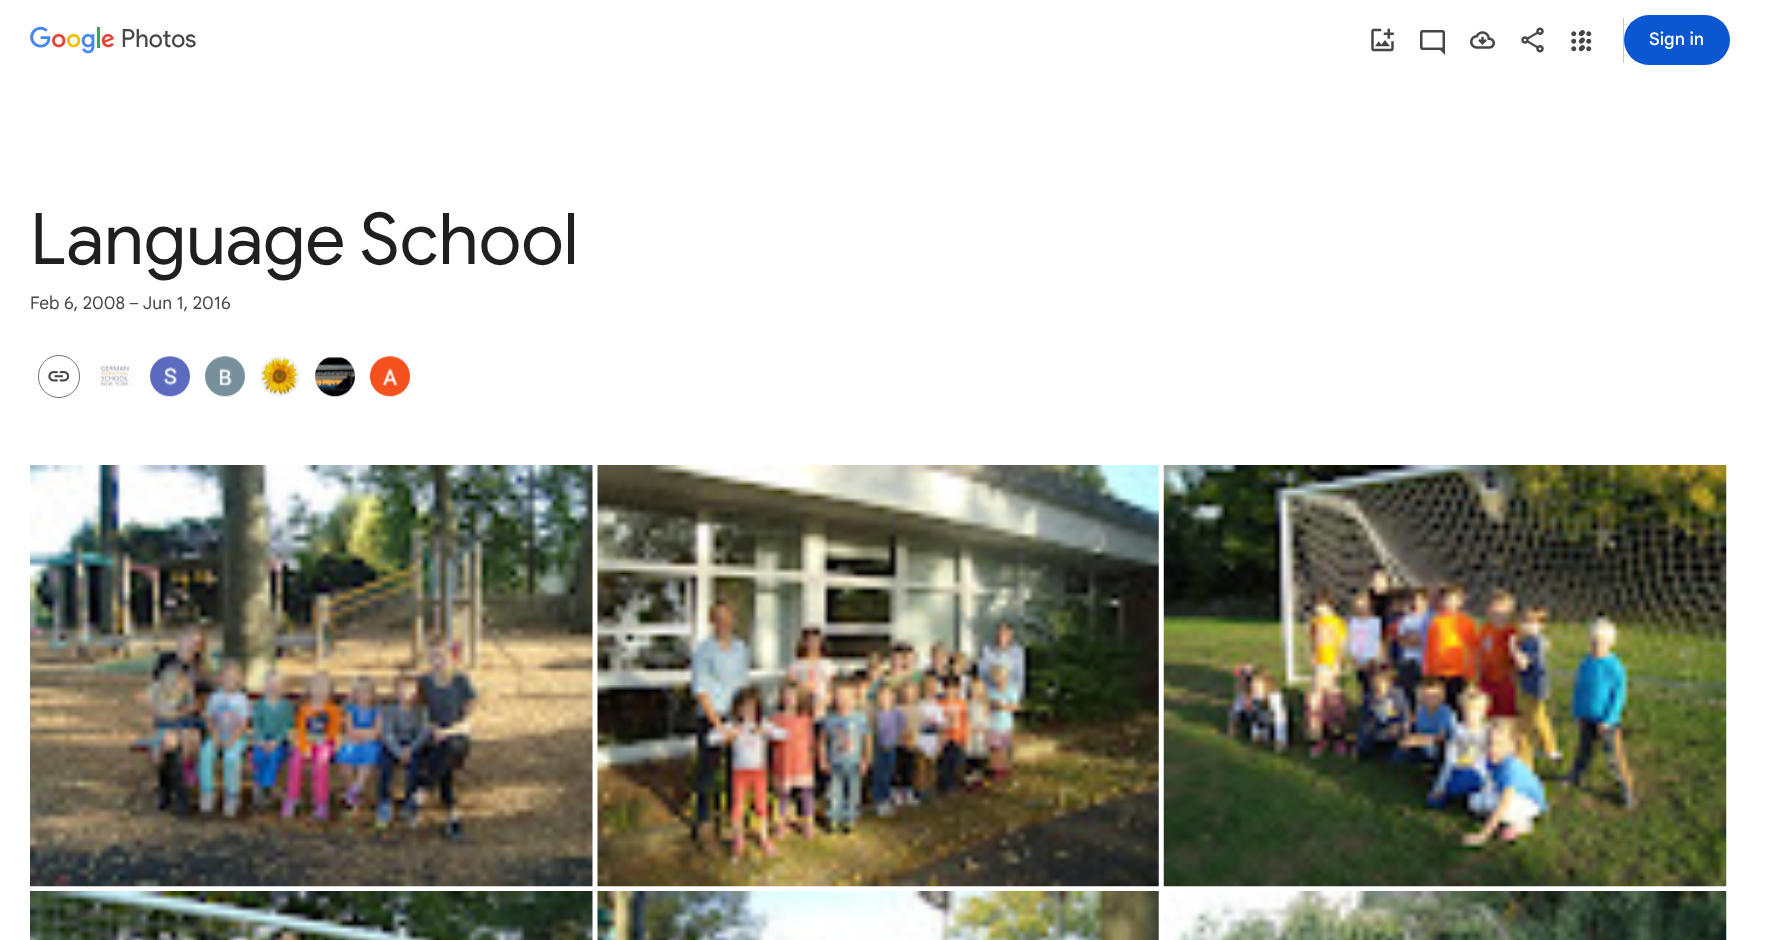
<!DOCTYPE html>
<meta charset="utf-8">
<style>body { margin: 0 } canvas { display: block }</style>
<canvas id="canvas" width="1775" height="940"></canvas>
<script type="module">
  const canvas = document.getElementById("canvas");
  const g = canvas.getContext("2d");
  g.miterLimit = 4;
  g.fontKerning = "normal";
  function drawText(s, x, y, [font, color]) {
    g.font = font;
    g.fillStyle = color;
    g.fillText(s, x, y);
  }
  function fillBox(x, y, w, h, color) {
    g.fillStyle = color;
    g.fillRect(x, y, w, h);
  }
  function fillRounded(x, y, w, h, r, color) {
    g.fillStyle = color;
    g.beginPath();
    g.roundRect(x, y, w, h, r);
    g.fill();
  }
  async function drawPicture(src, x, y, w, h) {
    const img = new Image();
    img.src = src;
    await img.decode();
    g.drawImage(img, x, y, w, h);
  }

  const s1 = ["25px Product Sans", "#444746"];
  const s2 = ["71.25px Google Sans", "#1F1F1F"];
  const s3 = ["17.5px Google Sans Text", "#444746"];
  const s4 = ["500 17.5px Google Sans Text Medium", "#FFFFFF"];

  fillBox(0, 0, 1775, 940, "#FFFFFF");
  await drawPicture("pic1.png", 30, 26, 84, 28);
  drawText("Photos", 121, 47, s1);
  await drawPicture("pic2.png", 1371, 28, 23, 24);
  await drawPicture("pic3.png", 1420, 30, 25, 25);
  await drawPicture("pic4.png", 1470, 31, 25, 18);
  await drawPicture("pic5.png", 1521, 27, 23, 26);
  await drawPicture("pic6.png", 1580, 30, 5, 20);
  fillBox(1623, 18, 1, 45, "#C4C7C5");
  drawText("Language School", 30, 264, s2);
  drawText("Feb 6, 2008 – Jun 1, 2016", 30, 309, s3);
  g.beginPath();
  g.roundRect(38.5, 355.5, 41, 42, 20.5);
  g.strokeStyle = "#747775";
  g.stroke();
  await drawPicture("pic7.png", 48, 371, 22, 11);
  await drawPicture("pic8.png", 95, 365, 40, 22);
  await drawPicture("pic9.png", 150, 356, 40, 41);
  await drawPicture("pic10.png", 205, 356, 40, 41);
  await drawPicture("pic11.png", 260, 356, 40, 41);
  await drawPicture("pic12.png", 315, 357, 40, 40);
  await drawPicture("pic13.png", 370, 356, 40, 41);
  await drawPicture("pic14.png", 30, 465, 563, 422);
  await drawPicture("pic15.png", 597, 465, 562, 422);
  await drawPicture("pic16.png", 1163, 465, 564, 422);
  await drawPicture("pic17.png", 30, 891, 563, 49);
  await drawPicture("pic18.png", 597, 891, 562, 49);
  await drawPicture("pic19.png", 1164, 891, 563, 49);
  await drawPicture("pic20.png", 1571, 31, 21, 21);
  fillRounded(1624, 15, 106, 50, 25, "#0B57D0");
  drawText("Sign in", 1649, 45, s4);
</script>
